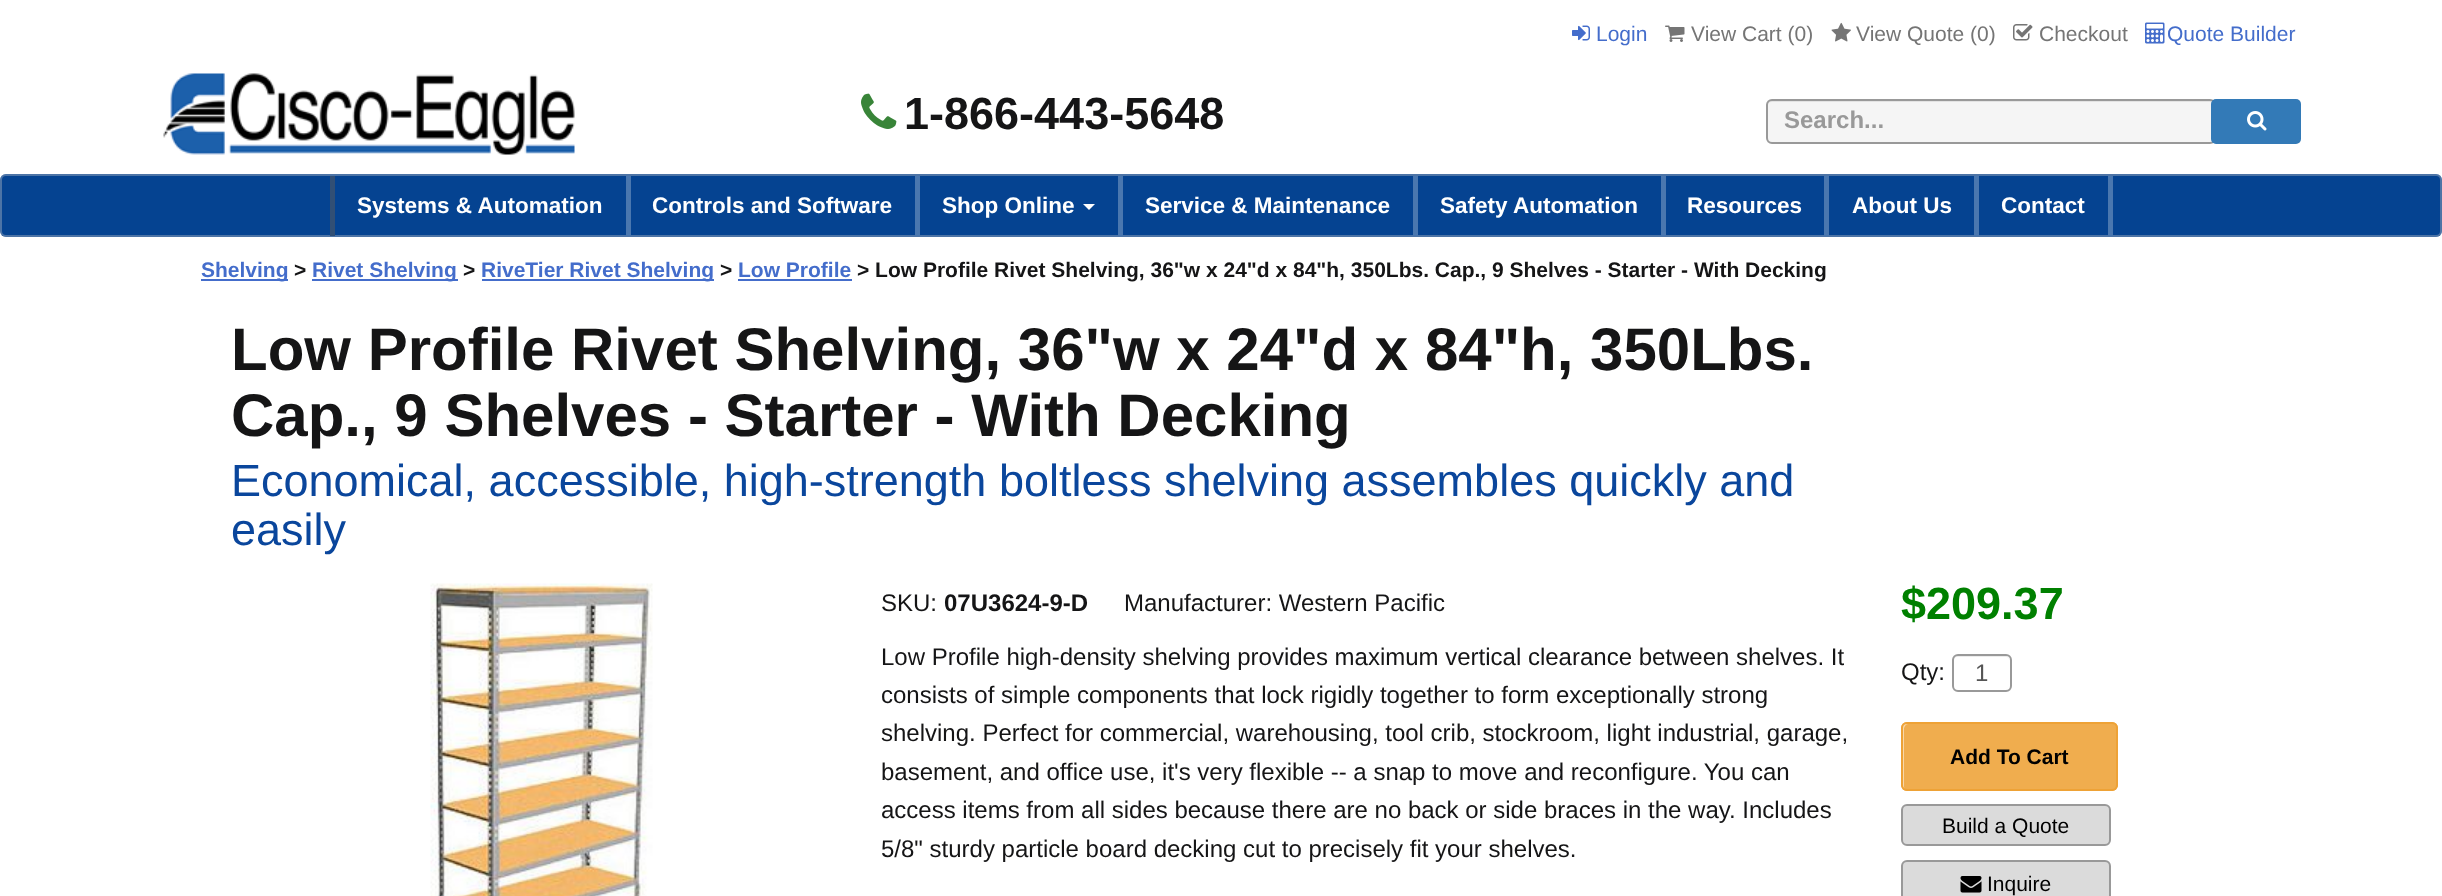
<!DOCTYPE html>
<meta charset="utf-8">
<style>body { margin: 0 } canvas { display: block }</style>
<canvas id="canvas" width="2442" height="896"></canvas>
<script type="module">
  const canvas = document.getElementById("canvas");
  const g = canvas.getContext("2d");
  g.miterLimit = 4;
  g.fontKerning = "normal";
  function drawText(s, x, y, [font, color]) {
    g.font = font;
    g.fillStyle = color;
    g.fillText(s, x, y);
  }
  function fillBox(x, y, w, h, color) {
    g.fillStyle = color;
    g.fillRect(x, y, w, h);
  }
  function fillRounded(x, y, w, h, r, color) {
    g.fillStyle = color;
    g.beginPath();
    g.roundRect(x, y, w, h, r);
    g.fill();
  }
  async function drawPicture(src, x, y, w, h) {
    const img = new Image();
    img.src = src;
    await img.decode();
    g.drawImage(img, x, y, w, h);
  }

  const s1 = ["21px Liberation Sans", "#446DCB"];
  const s2 = ["21px Liberation Sans", "#757575"];
  const s3 = ["bold 45px Liberation Sans", "#151516"];
  const s4 = ["bold 24px Liberation Sans", "#999999"];
  const s5 = ["bold 22.5px Liberation Sans", "#FFFFFF"];
  const s6 = ["bold 21px Liberation Sans", "#446DCB"];
  const s7 = ["bold 21px Liberation Sans", "#151516"];
  const s8 = ["bold 60px Liberation Sans", "#151516"];
  const s9 = ["45px Liberation Sans", "#0A469C"];
  const s10 = ["24px Liberation Sans", "#151516"];
  const s11 = ["bold 24px Liberation Sans", "#151516"];
  const s12 = ["bold 45px Liberation Sans", "#008000"];
  const s13 = ["24px Liberation Sans", "#555555"];
  const s14 = ["bold 21px Liberation Sans", "#000000"];
  const s15 = ["21px Liberation Sans", "#000000"];

  fillBox(0, 0, 2442, 896, "#FFFFFF");
  await drawPicture("pic1.png", 1572, 25, 18, 16);
  drawText("Login", 1596, 41, s1);
  await drawPicture("pic2.png", 1665, 25, 20, 17);
  drawText("View Cart (0)", 1691, 41, s2);
  await drawPicture("pic3.png", 1831, 22, 20, 20);
  drawText("View Quote (0)", 1856, 41, s2);
  await drawPicture("pic4.png", 2013, 24, 20, 17);
  drawText("Checkout", 2039, 41, s2);
  await drawPicture("pic5.png", 2145, 22, 20, 22);
  drawText("Quote Builder", 2167, 41, s1);
  await drawPicture("pic6.png", 163, 73, 412, 82);
  await drawPicture("pic7.png", 861, 93, 36, 36);
  drawText("1-866-443-5648", 904, 129, s3);
  fillRounded(1766, 99, 450, 45, 6, "#F5F5F5");
  g.fillStyle = "#E3E3E3";
  g.beginPath();
  g.moveTo(1772, 102);
  g.lineTo(2210, 102);
  g.bezierCurveTo(2212, 102, 2214, 104, 2214, 106);
  g.bezierCurveTo(2214, 103, 2212, 101, 2209, 101);
  g.lineTo(1772, 101);
  g.bezierCurveTo(1769, 101, 1767, 103, 1767, 106);
  g.bezierCurveTo(1767, 104, 1769, 102, 1772, 102);
  g.closePath();
  g.fill();
  g.beginPath();
  g.roundRect(1767, 100, 448, 43, 5);
  g.strokeStyle = "#999999";
  g.lineWidth = 2;
  g.stroke();
  drawText("Search...", 1784, 128, s4);
  fillRounded(2211, 99, 90, 45, 5, "#337AB7");
  await drawPicture("pic8.png", 2247, 111, 20, 20);
  fillRounded(0, 174, 2442, 63, 6, "#054391");
  g.beginPath();
  g.roundRect(1, 175, 2440, 61, 5);
  g.strokeStyle = "rgba(204, 204, 204, 0.36)";
  g.stroke();
  fillBox(330, 176, 5, 60, "#314F75");
  fillBox(626, 176, 5, 60, "#4A77AF");
  drawText("Systems & Automation", 357, 213, s5);
  fillBox(915, 176, 5, 60, "#4A77AF");
  drawText("Controls and Software", 652, 213, s5);
  fillBox(1118, 176, 5, 60, "#4A77AF");
  drawText("Shop Online", 942, 213, s5);
  g.beginPath();
  g.moveTo(1083, 204);
  g.lineTo(1095, 204);
  g.lineTo(1089, 210);
  g.closePath();
  g.fill();
  fillBox(1413, 176, 5, 60, "#4A77AF");
  drawText("Service & Maintenance", 1145, 213, s5);
  fillBox(1661, 176, 5, 60, "#4A77AF");
  drawText("Safety Automation", 1440, 213, s5);
  fillBox(1824, 176, 5, 60, "#4A77AF");
  drawText("Resources", 1687, 213, s5);
  fillBox(1974, 176, 5, 60, "#4A77AF");
  drawText("About Us", 1852, 213, s5);
  fillBox(2108, 176, 5, 60, "#4A77AF");
  drawText("Contact", 2001, 213, s5);
  fillBox(201, 279, 87, 2, "#446DCB");
  drawText("Shelving", 201, 277, s6);
  drawText(">", 294, 277, s7);
  fillBox(312, 279, 146, 2, "#446DCB");
  drawText("Rivet Shelving", 312, 277, s6);
  drawText(">", 463, 277, s7);
  fillBox(482, 279, 232, 2, "#446DCB");
  drawText("RiveTier Rivet Shelving", 481, 277, s6);
  drawText(">", 720, 277, s7);
  drawText("Low Profile", 738, 277, s6);
  fillBox(738, 279, 114, 2, "#446DCB");
  drawText("> Low Profile Rivet Shelving, 36\"w x 24\"d x 84\"h, 350Lbs. Cap., 9 Shelves - Starter - With Decking", 857, 277, s7);
  drawText("Low Profile Rivet Shelving, 36\"w x 24\"d x 84\"h, 350Lbs.", 231, 370, s8);
  drawText("Cap., 9 Shelves - Starter - With Decking", 231, 436, s8);
  drawText("Economical, accessible, high-strength boltless shelving assembles quickly and", 231, 496, s9);
  drawText("easily", 231, 545, s9);
  await drawPicture("pic9.png", 430, 583, 223, 313);
  drawText("SKU:", 881, 611, s10);
  drawText("07U3624-9-D", 944, 611, s11);
  drawText("Manufacturer: Western Pacific", 1124, 611, s10);
  drawText("Low Profile high-density shelving provides maximum vertical clearance between shelves. It", 881, 665, s10);
  drawText("consists of simple components that lock rigidly together to form exceptionally strong", 881, 703, s10);
  drawText("shelving. Perfect for commercial, warehousing, tool crib, stockroom, light industrial, garage,", 881, 741, s10);
  drawText("basement, and office use, it's very flexible -- a snap to move and reconfigure. You can", 881, 780, s10);
  drawText("access items from all sides because there are no back or side braces in the way. Includes", 881, 818, s10);
  drawText("5/8\" sturdy particle board decking cut to precisely fit your shelves.", 881, 857, s10);
  drawText("$209.37", 1901, 619, s12);
  drawText("Qty:", 1901, 680, s10);
  g.fillStyle = "#ECECEC";
  g.beginPath();
  g.moveTo(1958, 657);
  g.lineTo(2006, 657);
  g.bezierCurveTo(2008, 657, 2010, 659, 2010, 662);
  g.bezierCurveTo(2010, 654, 2003, 656, 1997, 656);
  g.lineTo(1966, 656);
  g.bezierCurveTo(1960, 656, 1953, 654, 1953, 662);
  g.bezierCurveTo(1953, 659, 1955, 657, 1958, 657);
  g.closePath();
  g.fill();
  g.beginPath();
  g.roundRect(1953, 655, 58, 36, 5);
  g.strokeStyle = "#999999";
  g.stroke();
  drawText("1", 1975, 681, s13);
  fillRounded(1901, 722, 217, 69, 6, "#F0AD4E");
  g.fillStyle = "#F8D8AA";
  g.beginPath();
  g.moveTo(1908, 724);
  g.lineTo(2114, 724);
  g.lineTo(2116, 725);
  g.bezierCurveTo(2115, 724, 2114, 723, 2112, 723);
  g.lineTo(1907, 723);
  g.bezierCurveTo(1904, 723, 1902, 725, 1902, 728);
  g.lineTo(1902, 784);
  g.bezierCurveTo(1902, 786, 1903, 788, 1905, 789);
  g.bezierCurveTo(1904, 788, 1904, 787, 1904, 786);
  g.lineTo(1904, 729);
  g.bezierCurveTo(1904, 727, 1906, 724, 1908, 724);
  g.closePath();
  g.fill();
  g.beginPath();
  g.roundRect(1902, 723, 215, 67, 5);
  g.strokeStyle = "#EEA236";
  g.stroke();
  drawText("Add To Cart", 1950, 764, s14);
  g.fillStyle = "#DBDBDB";
  g.beginPath();
  g.roundRect(1902, 805, 208, 40, 5);
  g.fill();
  g.strokeStyle = "#999999";
  g.stroke();
  drawText("Build a Quote", 1942, 833, s15);
  g.fillStyle = "#DBDBDB";
  g.beginPath();
  g.roundRect(1902, 861, 208, 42, 5);
  g.fill();
  g.stroke();
  await drawPicture("pic10.png", 1960, 876, 22, 17);
  drawText("Inquire", 1987, 891, s15);
</script>
